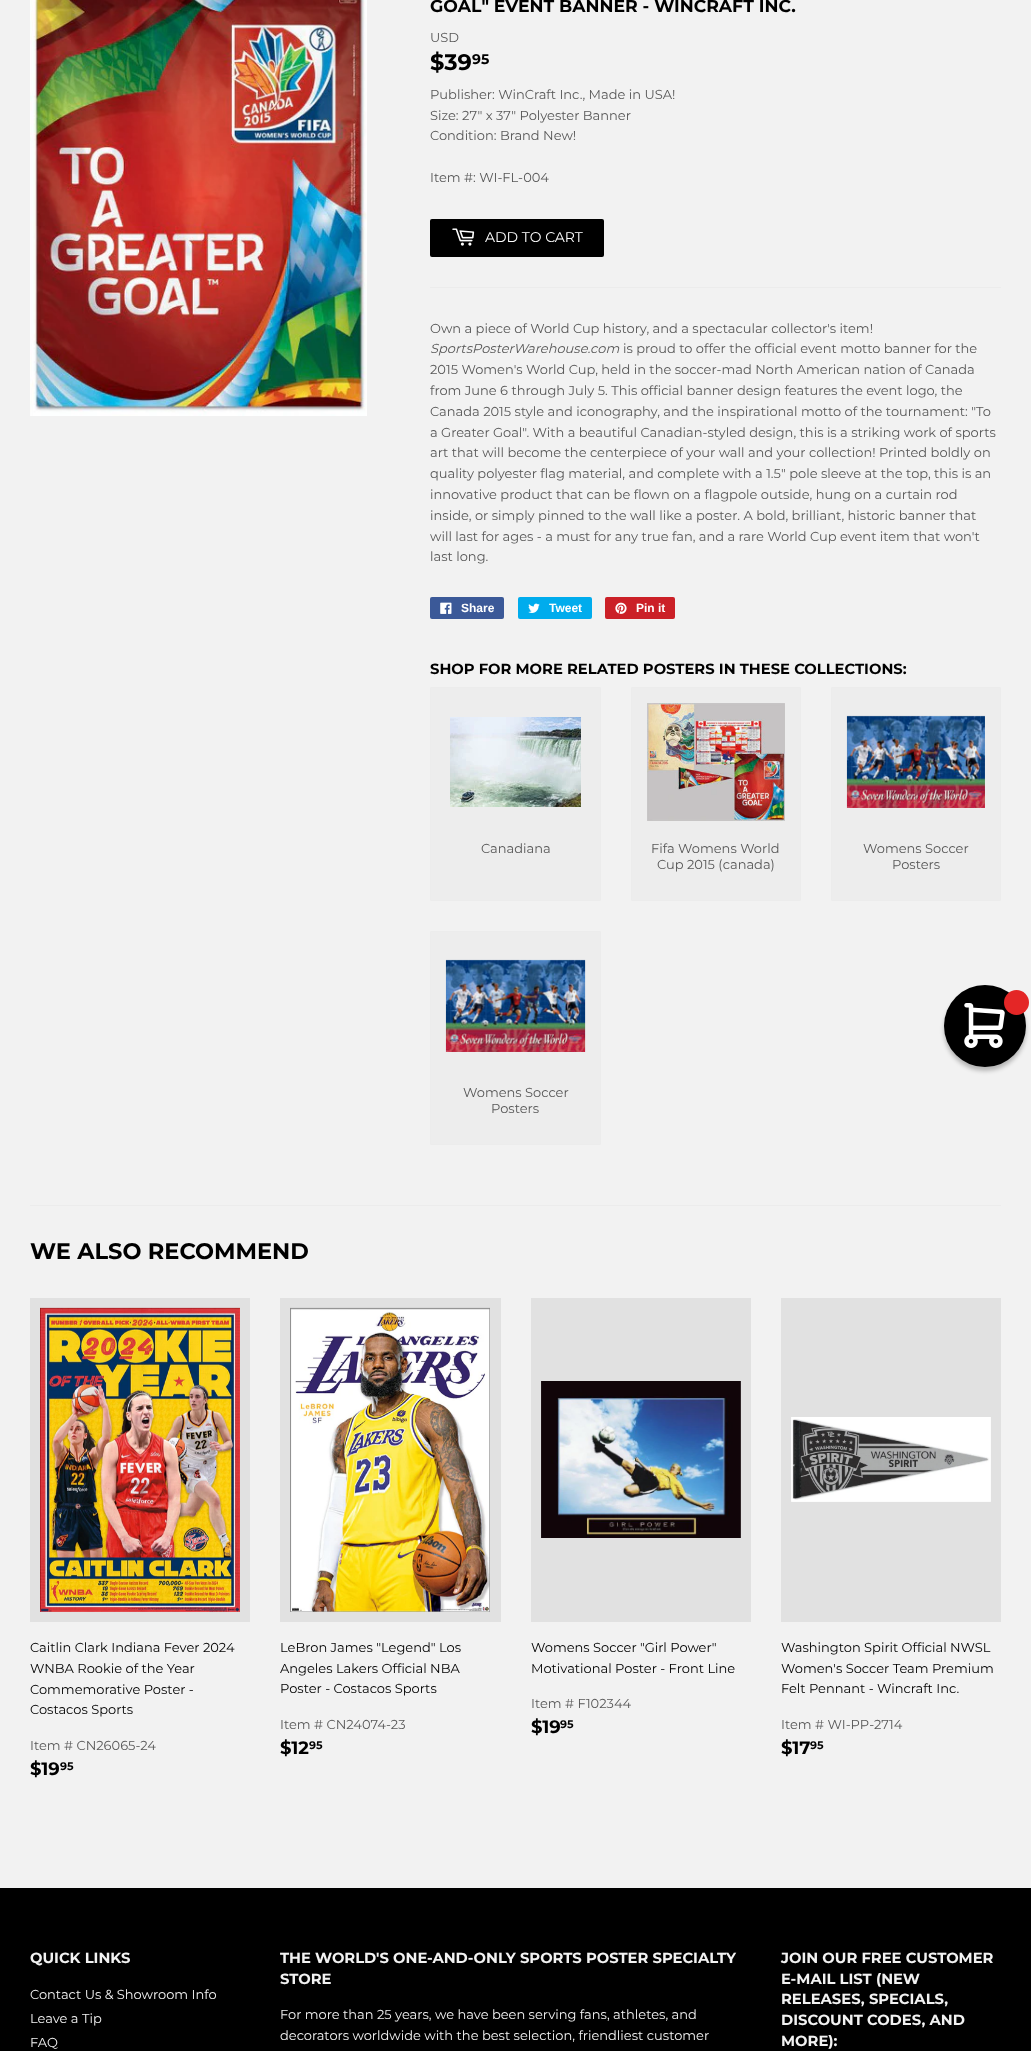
<!DOCTYPE html>
<meta charset="utf-8">
<style>body { margin: 0 } canvas { display: block }</style>
<canvas id="canvas" width="1031" height="2051"></canvas>
<script type="module">
  const canvas = document.getElementById("canvas");
  const g = canvas.getContext("2d");
  g.miterLimit = 4;
  g.fontKerning = "normal";
  function drawText(s, x, y, [font, color]) {
    g.font = font;
    g.fillStyle = color;
    g.fillText(s, x, y);
  }
  function fillBox(x, y, w, h, color) {
    g.fillStyle = color;
    g.fillRect(x, y, w, h);
  }
  function fillRounded(x, y, w, h, r, color) {
    g.fillStyle = color;
    g.beginPath();
    g.roundRect(x, y, w, h, r);
    g.fill();
  }
  async function drawPicture(src, x, y, w, h) {
    const img = new Image();
    img.src = src;
    await img.decode();
    g.drawImage(img, x, y, w, h);
  }

  const s1 = ["bold 17.3px Montserrat", "#000000"];
  const s2 = ["13px Montserrat", "#585858"];
  const s3 = ["bold 22.5px Montserrat", "#000000"];
  const s4 = ["bold 14px Montserrat", "#000000"];
  const s5 = ["14px Montserrat", "#FFFFFF"];
  const s6 = ["italic 13px Montserrat", "#585858"];
  const s7 = ["bold 12px Liberation Sans", "#FFFFFF"];
  const s8 = ["bold 14.75px Montserrat", "#000000"];
  const s9 = ["13px Montserrat", "#000000"];
  const s10 = ["bold 18px Montserrat", "#000000"];
  const s11 = ["bold 11px Montserrat", "#000000"];
  const s12 = ["bold 14.75px Montserrat", "#F2F2F2"];
  const s13 = ["13px Montserrat", "#F2F2F2"];

  fillBox(0, 0, 1031, 2051, "#F2F2F2");
  await drawPicture("pic1.png", 30, 0, 337, 416);
  drawText("GOAL\" EVENT BANNER - WINCRAFT INC.", 430, 12, s1);
  drawText("USD", 430, 42, s2);
  drawText("$39", 430, 70, s3);
  drawText("95", 472, 64, s4);
  drawText("Publisher: WinCraft Inc., Made in USA!", 430, 99, s2);
  drawText("Size: 27\" x 37\" Polyester Banner", 430, 120, s2);
  drawText("Condition: Brand New!", 430, 140, s2);
  drawText("Item #: WI-FL-004", 430, 182, s2);
  fillRounded(430, 219, 174, 38, 2, "#000000");
  await drawPicture("pic2.png", 452, 228, 23, 18);
  drawText("ADD TO CART", 485, 242, s5);
  fillBox(430, 287, 571, 1, "#ECECEC");
  drawText("Own a piece of World Cup history, and a spectacular collector's item!", 430, 333, s2);
  drawText("SportsPosterWarehouse.com", 430, 353, s6);
  drawText("is proud to offer the official event motto banner for the", 623, 353, s2);
  drawText("2015 Women's World Cup, held in the soccer-mad North American nation of Canada", 430, 374, s2);
  drawText("from June 6 through July 5. This official banner design features the event logo, the", 430, 395, s2);
  drawText("Canada 2015 style and iconography, and the inspirational motto of the tournament: \"To", 430, 416, s2);
  drawText("a Greater Goal\". With a beautiful Canadian-styled design, this is a striking work of sports", 430, 437, s2);
  drawText("art that will become the centerpiece of your wall and your collection! Printed boldly on", 430, 457, s2);
  drawText("quality polyester flag material, and complete with a 1.5\" pole sleeve at the top, this is an", 430, 478, s2);
  drawText("innovative product that can be flown on a flagpole outside, hung on a curtain rod", 430, 499, s2);
  drawText("inside, or simply pinned to the wall like a poster. A bold, brilliant, historic banner that", 430, 520, s2);
  drawText("will last for ages - a must for any true fan, and a rare World Cup event item that won't", 430, 541, s2);
  drawText("last long.", 430, 561, s2);
  fillRounded(430, 597, 74, 22, 2, "#3B5998");
  await drawPicture("pic3.png", 440, 602, 12, 12);
  drawText("Share", 461, 612, s7);
  fillRounded(518, 597, 74, 22, 2, "#00ACED");
  await drawPicture("pic4.png", 528, 603, 12, 10);
  drawText("Tweet", 549, 612, s7);
  fillRounded(605, 597, 70, 22, 2, "#CB2027");
  await drawPicture("pic5.png", 615, 602, 12, 12);
  drawText("Pin it", 636, 612, s7);
  drawText("SHOP FOR MORE RELATED POSTERS IN THESE COLLECTIONS:", 430, 674, s8);
  g.fillStyle = "#EDEDED";
  g.beginPath();
  g.rect(430.5, 687.5, 170, 213);
  g.fill();
  g.strokeStyle = "#ECECEC";
  g.stroke();
  await drawPicture("pic6.png", 450, 717, 131, 90);
  drawText("Canadiana", 481, 853, s2);
  g.fillStyle = "#EDEDED";
  g.beginPath();
  g.rect(631.5, 687.5, 169, 213);
  g.fill();
  g.stroke();
  await drawPicture("pic7.png", 647, 703, 138, 118);
  drawText("Fifa Womens World", 651, 853, s2);
  drawText("Cup 2015 (canada)", 657, 869, s2);
  g.fillStyle = "#EDEDED";
  g.beginPath();
  g.rect(831.5, 687.5, 169, 213);
  g.fill();
  g.stroke();
  await drawPicture("pic8.png", 846, 715, 139, 93);
  drawText("Womens Soccer", 863, 853, s2);
  drawText("Posters", 892, 869, s2);
  g.fillStyle = "#EDEDED";
  g.beginPath();
  g.rect(430.5, 931.5, 170, 213);
  g.fill();
  g.stroke();
  await drawPicture("pic9.png", 445, 959, 141, 93);
  drawText("Womens Soccer", 463, 1097, s2);
  drawText("Posters", 491, 1113, s2);
  fillBox(30, 1205, 971, 1, "#ECECEC");
  drawText("WE ALSO RECOMMEND", 30, 1259, s3);
  fillBox(30, 1298, 220, 324, "#E1E1E1");
  await drawPicture("pic10.png", 40, 1307, 200, 305);
  drawText("Caitlin Clark Indiana Fever 2024", 30, 1652, s9);
  drawText("WNBA Rookie of the Year", 30, 1673, s9);
  drawText("Commemorative Poster -", 30, 1694, s9);
  drawText("Costacos Sports", 30, 1714, s9);
  drawText("Item # CN26065-24", 30, 1750, s2);
  drawText("$19", 30, 1775, s10);
  drawText("95", 60, 1770, s11);
  fillBox(280, 1298, 221, 324, "#E1E1E1");
  await drawPicture("pic11.png", 290, 1307, 200, 305);
  drawText("LeBron James \"Legend\" Los", 280, 1652, s9);
  drawText("Angeles Lakers Official NBA", 280, 1673, s9);
  drawText("Poster - Costacos Sports", 280, 1693, s9);
  drawText("Item # CN24074-23", 280, 1729, s2);
  drawText("$12", 280, 1754, s10);
  drawText("95", 309, 1749, s11);
  fillBox(531, 1298, 220, 324, "#E1E1E1");
  await drawPicture("pic12.png", 541, 1381, 200, 157);
  drawText("Womens Soccer \"Girl Power\"", 531, 1652, s9);
  drawText("Motivational Poster - Front Line", 531, 1673, s9);
  drawText("Item # F102344", 531, 1708, s2);
  drawText("$19", 531, 1733, s10);
  drawText("95", 560, 1728, s11);
  fillBox(781, 1298, 220, 324, "#E1E1E1");
  await drawPicture("pic13.png", 791, 1417, 200, 85);
  drawText("Washington Spirit Official NWSL", 781, 1652, s9);
  drawText("Women's Soccer Team Premium", 781, 1673, s9);
  drawText("Felt Pennant - Wincraft Inc.", 781, 1693, s9);
  drawText("Item # WI-PP-2714", 781, 1729, s2);
  drawText("$17", 781, 1754, s10);
  drawText("95", 810, 1749, s11);
  g.fillStyle = "rgba(0, 0, 0, 0.25)";
  g.filter = "blur(2px)";
  g.beginPath();
  g.roundRect(944, 989, 82, 82, 41);
  g.fill();
  g.filter = "none";
  g.fillStyle = "#000000";
  g.beginPath();
  g.arc(985, 1026, 41, 0, Math.PI * 2);
  g.fill();
  g.fillStyle = "#E42626";
  g.beginPath();
  g.arc(1016.5, 1002.5, 12.5, 0, Math.PI * 2);
  g.fill();
  await drawPicture("pic14.png", 964, 1003, 41, 45);
  fillBox(0, 1888, 1031, 163, "#000000");
  drawText("QUICK LINKS", 30, 1963, s12);
  drawText("Contact Us & Showroom Info", 30, 1999, s13);
  drawText("Leave a Tip", 30, 2023, s13);
  drawText("FAQ", 30, 2047, s13);
  drawText("THE WORLD'S ONE-AND-ONLY SPORTS POSTER SPECIALTY", 280, 1963, s12);
  drawText("STORE", 280, 1984, s12);
  drawText("For more than 25 years, we have been serving fans, athletes, and", 280, 2019, s13);
  drawText("decorators worldwide with the best selection, friendliest customer", 280, 2040, s13);
  drawText("JOIN OUR FREE CUSTOMER", 781, 1963, s12);
  drawText("E-MAIL LIST (NEW", 781, 1984, s12);
  drawText("RELEASES, SPECIALS,", 781, 2004, s12);
  drawText("DISCOUNT CODES, AND", 781, 2025, s12);
  drawText("MORE):", 781, 2046, s12);
</script>
